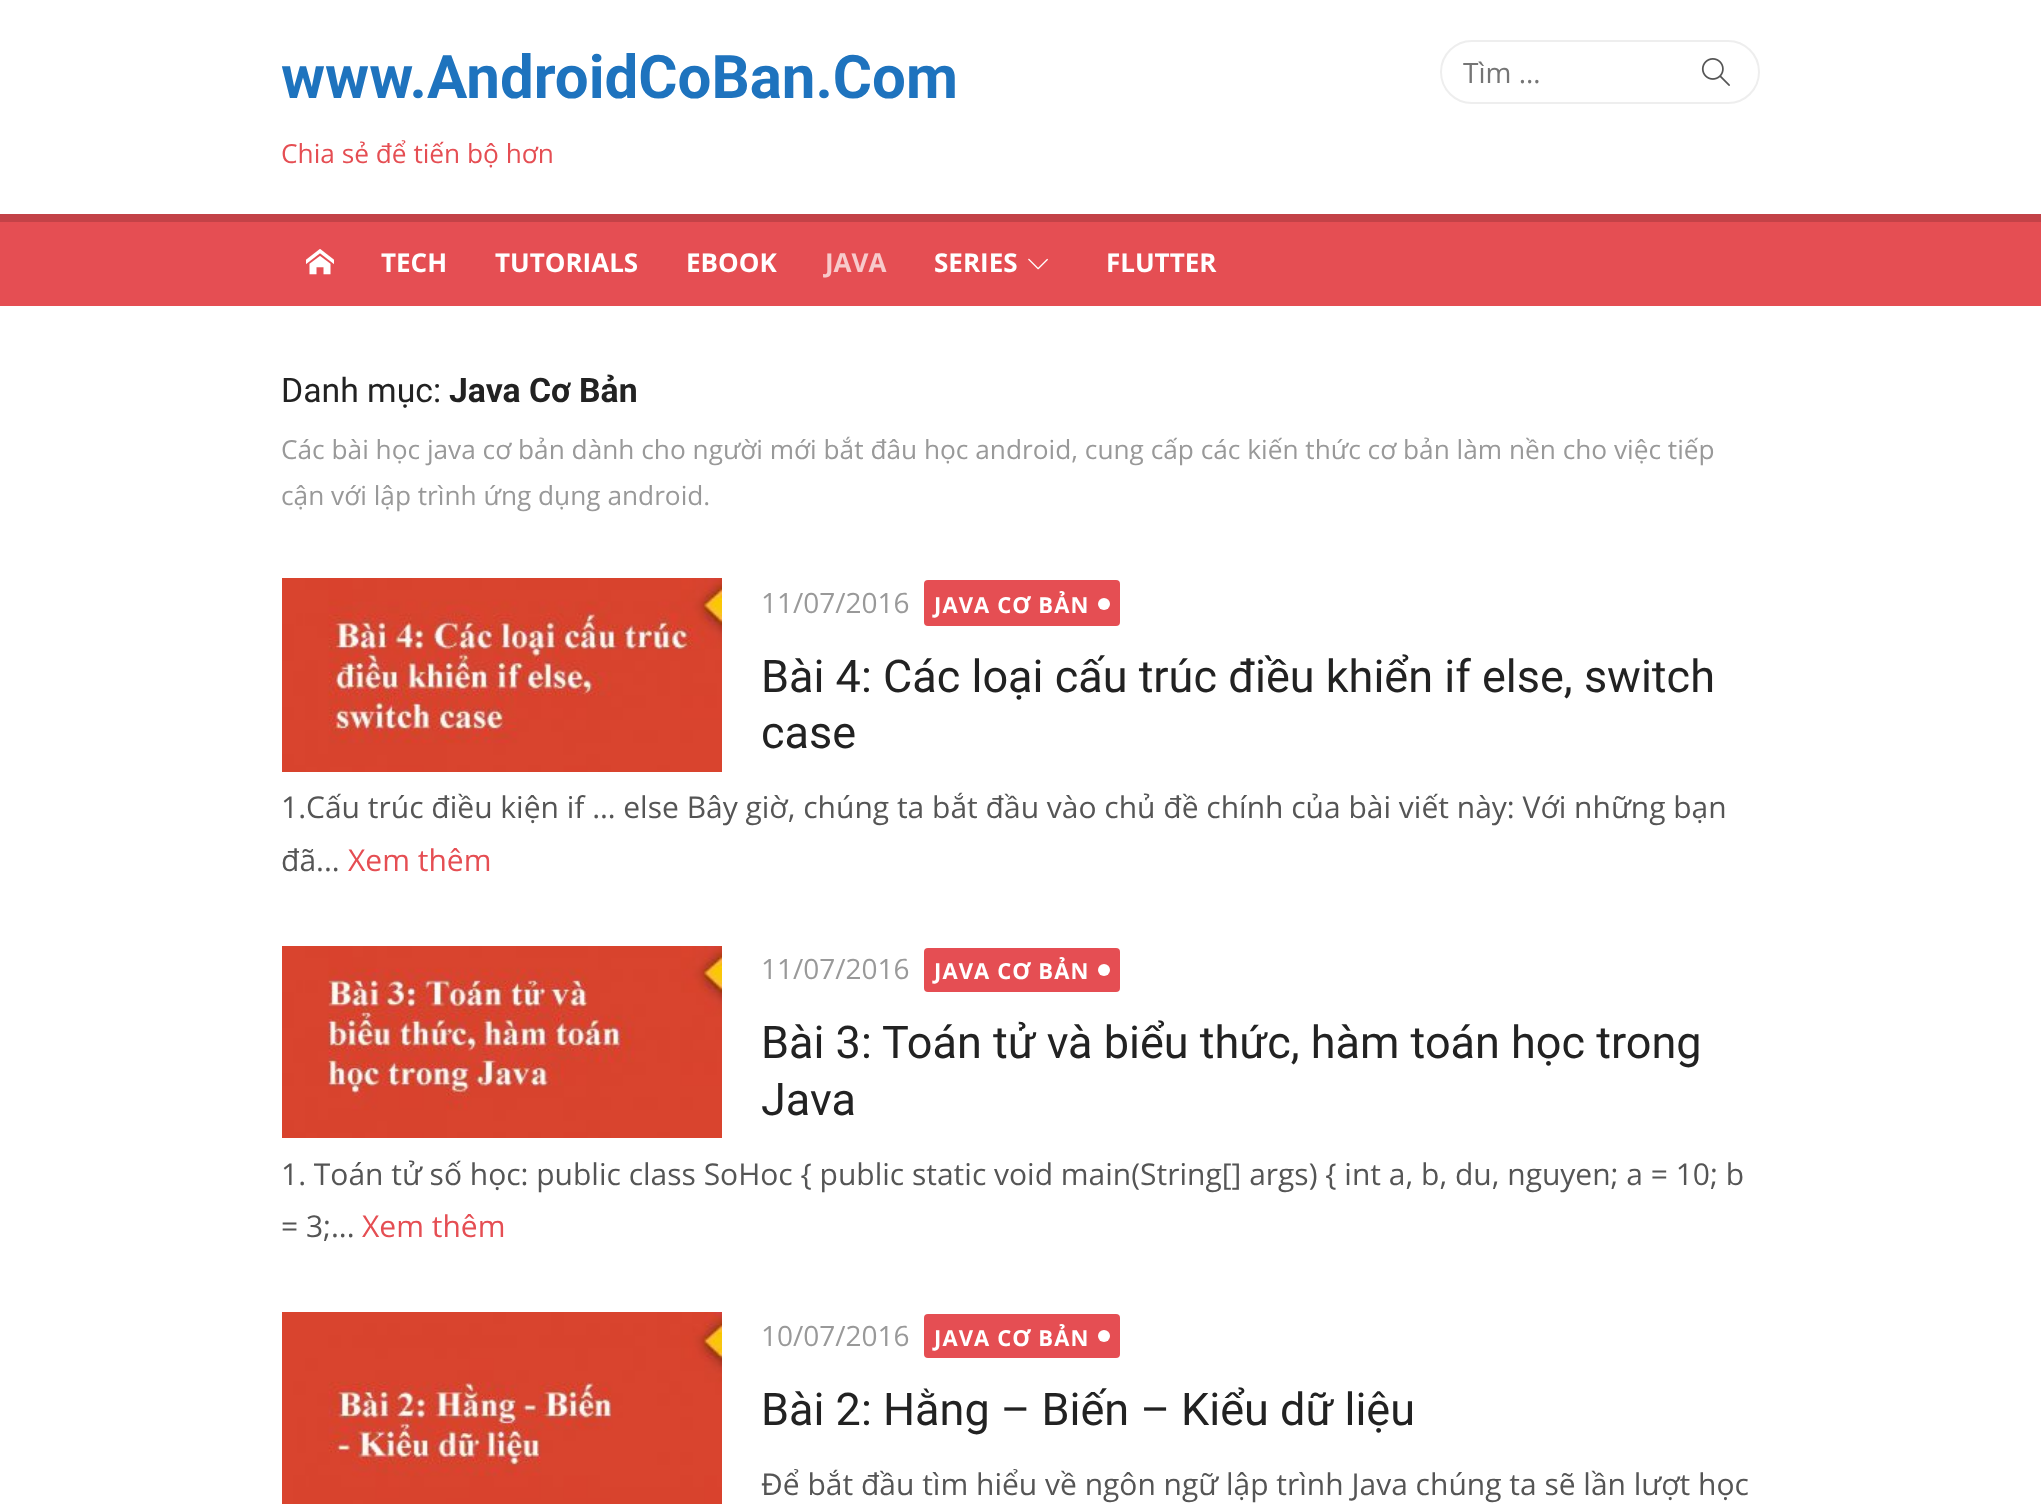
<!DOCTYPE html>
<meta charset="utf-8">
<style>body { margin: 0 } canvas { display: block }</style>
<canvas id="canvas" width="2041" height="1504"></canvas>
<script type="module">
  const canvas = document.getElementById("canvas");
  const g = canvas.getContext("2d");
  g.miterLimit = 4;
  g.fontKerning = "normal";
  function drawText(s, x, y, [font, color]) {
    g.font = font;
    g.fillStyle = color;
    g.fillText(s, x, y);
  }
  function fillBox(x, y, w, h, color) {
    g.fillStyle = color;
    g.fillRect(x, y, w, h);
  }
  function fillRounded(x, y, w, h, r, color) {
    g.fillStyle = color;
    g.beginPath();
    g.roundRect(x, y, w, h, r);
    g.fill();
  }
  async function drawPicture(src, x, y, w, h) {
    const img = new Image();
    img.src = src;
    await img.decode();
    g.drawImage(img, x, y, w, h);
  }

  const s1 = ["bold 60px Roboto", "#1E73BE"];
  const s2 = ["26.25px Open Sans", "#E54E53"];
  const s3 = ["28px Open Sans", "#757575"];
  const s4 = ["bold 26px Open Sans", "#FFFFFF"];
  const s5 = ["bold 26px Open Sans", "#F7CACB"];
  const s6 = ["33.75px Roboto", "#222222"];
  const s7 = ["bold 33.75px Roboto", "#222222"];
  const s8 = ["26.25px Open Sans", "#999999"];
  const s9 = ["28px Open Sans", "#999999"];
  const s10 = ["bold 22px Open Sans", "#FFFFFF"];
  const s11 = ["45px Roboto", "#222222"];
  const s12 = ["30px Open Sans", "#555555"];
  const s13 = ["30px Open Sans", "#E54E53"];

  fillBox(0, 0, 2041, 1504, "#FFFFFF");
  drawText("www.AndroidCoBan.Com", 281, 98, s1);
  drawText("Chia sẻ để tiến bộ hơn", 281, 163, s2);
  g.beginPath();
  g.roundRect(1441, 41, 318, 62, 31);
  g.strokeStyle = "#EEEEEE";
  g.lineWidth = 2;
  g.stroke();
  drawText("Tìm …", 1463, 83, s3);
  await drawPicture("pic1.png", 1701, 58, 29, 28);
  fillBox(0, 222, 2041, 84, "#E54E53");
  fillBox(0, 214, 2041, 8, "#C34247");
  await drawPicture("pic2.png", 306, 249, 28, 26);
  drawText("TECH", 381, 272, s4);
  drawText("TUTORIALS", 495, 272, s4);
  drawText("EBOOK", 686, 272, s4);
  drawText("JAVA", 825, 272, s5);
  drawText("SERIES", 934, 272, s4);
  await drawPicture("pic3.png", 1028, 258, 20, 12);
  drawText("FLUTTER", 1106, 272, s4);
  drawText("Danh mục:", 281, 402, s6);
  drawText("Java Cơ Bản", 449, 402, s7);
  drawText("Các bài học java cơ bản dành cho người mới bắt đâu học android, cung cấp các kiến thức cơ bản làm nền cho việc tiếp", 281, 459, s8);
  drawText("cận với lập trình ứng dụng android.", 281, 505, s8);
  await drawPicture("pic4.png", 282, 578, 440, 194);
  drawText("11/07/2016", 761, 613, s9);
  fillRounded(924, 580, 196, 46, 4, "#E54E53");
  g.letterSpacing = "1.1px";
  drawText("JAVA CƠ BẢN", 934, 613, s10);
  g.beginPath();
  g.arc(1104, 604, 6, 0, Math.PI * 2);
  g.fill();
  g.letterSpacing = "0px";
  drawText("Bài 4: Các loại cấu trúc điều khiển if else, switch", 761, 692, s11);
  drawText("case", 761, 748, s11);
  drawText("1.Cấu trúc điều kiện if … else Bây giờ, chúng ta bắt đầu vào chủ đề chính của bài viết này: Với những bạn", 281, 818, s12);
  drawText("đã...", 281, 871, s12);
  drawText("Xem thêm", 348, 871, s13);
  await drawPicture("pic5.png", 282, 946, 440, 192);
  drawText("11/07/2016", 761, 979, s9);
  fillRounded(924, 948, 196, 44, 4, "#E54E53");
  g.letterSpacing = "1.1px";
  drawText("JAVA CƠ BẢN", 934, 979, s10);
  g.beginPath();
  g.arc(1104, 970, 6, 0, Math.PI * 2);
  g.fill();
  g.letterSpacing = "0px";
  drawText("Bài 3: Toán tử và biểu thức, hàm toán học trong", 761, 1058, s11);
  drawText("Java", 761, 1115, s11);
  drawText("1. Toán tử số học: public class SoHoc { public static void main(String[] args) { int a, b, du, nguyen; a = 10; b", 281, 1185, s12);
  drawText("= 3;...", 281, 1237, s12);
  drawText("Xem thêm", 362, 1237, s13);
  await drawPicture("pic6.png", 282, 1312, 440, 192);
  drawText("10/07/2016", 761, 1346, s9);
  fillRounded(924, 1314, 196, 44, 4, "#E54E53");
  g.letterSpacing = "1.1px";
  drawText("JAVA CƠ BẢN", 934, 1346, s10);
  g.beginPath();
  g.arc(1104, 1336, 6, 0, Math.PI * 2);
  g.fill();
  g.letterSpacing = "0px";
  drawText("Bài 2: Hằng – Biến – Kiểu dữ liệu", 761, 1425, s11);
  drawText("Để bắt đầu tìm hiểu về ngôn ngữ lập trình Java chúng ta sẽ lần lượt học", 761, 1495, s12);
</script>
